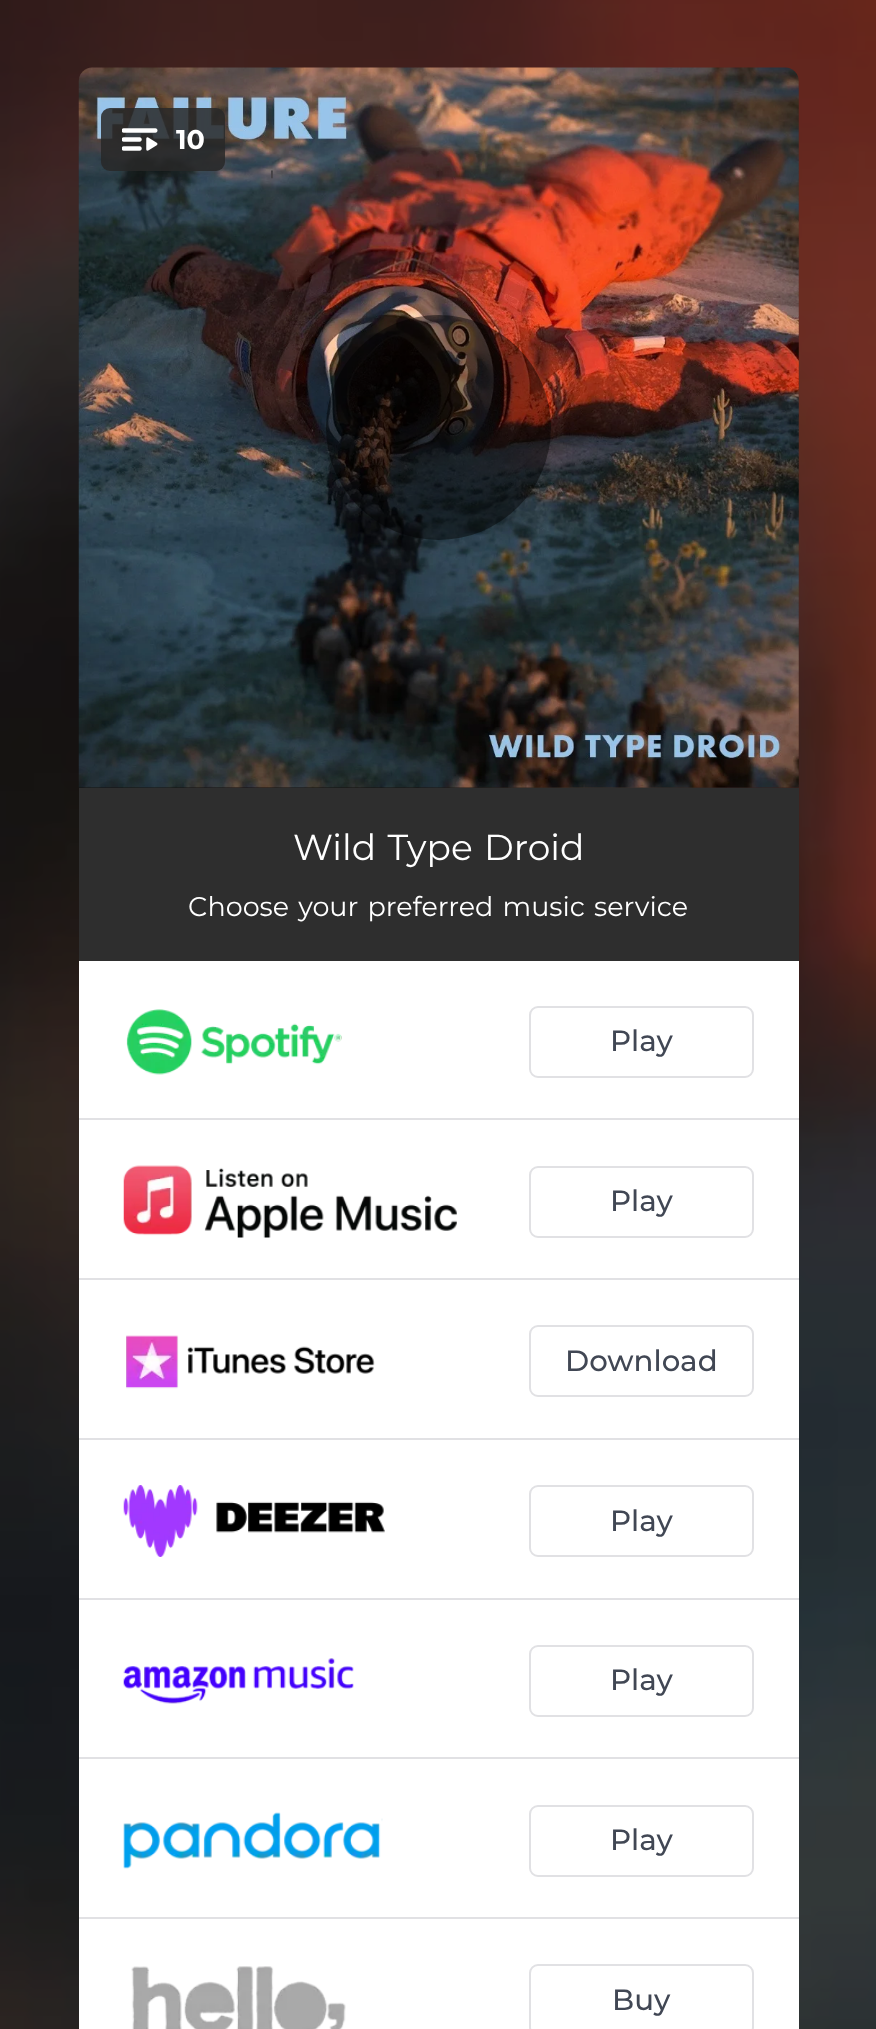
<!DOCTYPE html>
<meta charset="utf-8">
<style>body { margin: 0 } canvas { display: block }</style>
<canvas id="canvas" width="876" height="2029"></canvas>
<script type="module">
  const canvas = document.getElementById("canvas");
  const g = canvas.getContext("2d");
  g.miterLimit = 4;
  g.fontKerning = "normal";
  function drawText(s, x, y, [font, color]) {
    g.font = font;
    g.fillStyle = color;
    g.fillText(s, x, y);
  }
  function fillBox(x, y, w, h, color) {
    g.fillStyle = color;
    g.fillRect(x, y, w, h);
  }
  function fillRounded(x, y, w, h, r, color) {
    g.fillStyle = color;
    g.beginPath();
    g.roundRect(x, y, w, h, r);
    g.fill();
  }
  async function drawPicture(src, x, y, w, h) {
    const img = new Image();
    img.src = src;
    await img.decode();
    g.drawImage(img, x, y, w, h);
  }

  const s1 = ["bold 27px Montserrat", "#FFFFFF"];
  const s2 = ["29.25px Montserrat", "#423F43"];
  const s3 = ["36px Montserrat", "#FFFFFF"];
  const s4 = ["27px Montserrat", "#FFFFFF"];
  const s5 = ["500 29.25px Montserrat", "#414754"];

  fillBox(0, 0, 876, 2029, "#FFFFFF");
  await drawPicture("pic1.png", 0, 0, 876, 2029);
  await drawPicture("pic2.png", 78, 67, 721, 721);
  fillRounded(101, 108, 124, 63, 9, "rgba(40, 40, 40, 0.85)");
  await drawPicture("pic3.png", 122, 128, 36, 23);
  drawText("10", 176, 149, s1);
  g.fillStyle = "rgba(0, 0, 0, 0.45)";
  g.beginPath();
  g.arc(438.5, 427.5, 112.5, 0, Math.PI * 2);
  g.fill();
  g.wordSpacing = "2px";
  drawText("'", 269, 191, s2);
  fillBox(79, 788, 720, 173, "#2E2E2E");
  drawText("Wild Type Droid", 293, 860, s3);
  drawText("Choose your preferred music service", 188, 916, s4);
  fillBox(79, 961, 720, 1068, "#FFFFFF");
  fillBox(79, 1118, 720, 2, "#E1E1E4");
  await drawPicture("pic4.png", 126, 1009, 216, 66);
  g.beginPath();
  g.roundRect(530, 1007, 223, 70, 8);
  g.strokeStyle = "#E1E1E4";
  g.lineWidth = 2;
  g.stroke();
  g.wordSpacing = "0px";
  drawText("Play", 610, 1051, s5);
  fillBox(79, 1278, 720, 2, "#E1E1E4");
  await drawPicture("pic5.png", 123, 1165, 334, 73);
  g.beginPath();
  g.roundRect(530, 1167, 223, 70, 8);
  g.stroke();
  drawText("Play", 610, 1211, s5);
  fillBox(79, 1438, 720, 2, "#E1E1E4");
  await drawPicture("pic6.png", 126, 1335, 249, 54);
  g.beginPath();
  g.roundRect(530, 1326, 223, 70, 8);
  g.stroke();
  drawText("Download", 565, 1371, s5);
  fillBox(79, 1598, 720, 2, "#E1E1E4");
  await drawPicture("pic7.png", 123, 1485, 262, 72);
  g.beginPath();
  g.roundRect(530, 1486, 223, 70, 8);
  g.stroke();
  drawText("Play", 610, 1531, s5);
  fillBox(79, 1757, 720, 2, "#E1E1E4");
  await drawPicture("pic8.png", 123, 1658, 231, 46);
  g.beginPath();
  g.roundRect(530, 1646, 223, 70, 8);
  g.stroke();
  drawText("Play", 610, 1690, s5);
  fillBox(79, 1917, 720, 2, "#E1E1E4");
  await drawPicture("pic9.png", 123, 1812, 260, 57);
  g.beginPath();
  g.roundRect(530, 1806, 223, 70, 8);
  g.stroke();
  drawText("Play", 610, 1850, s5);
  await drawPicture("pic10.png", 131, 1966, 215, 63);
  g.beginPath();
  g.roundRect(530, 1965, 223, 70, 8);
  g.stroke();
  drawText("Buy", 612, 2010, s5);
</script>
